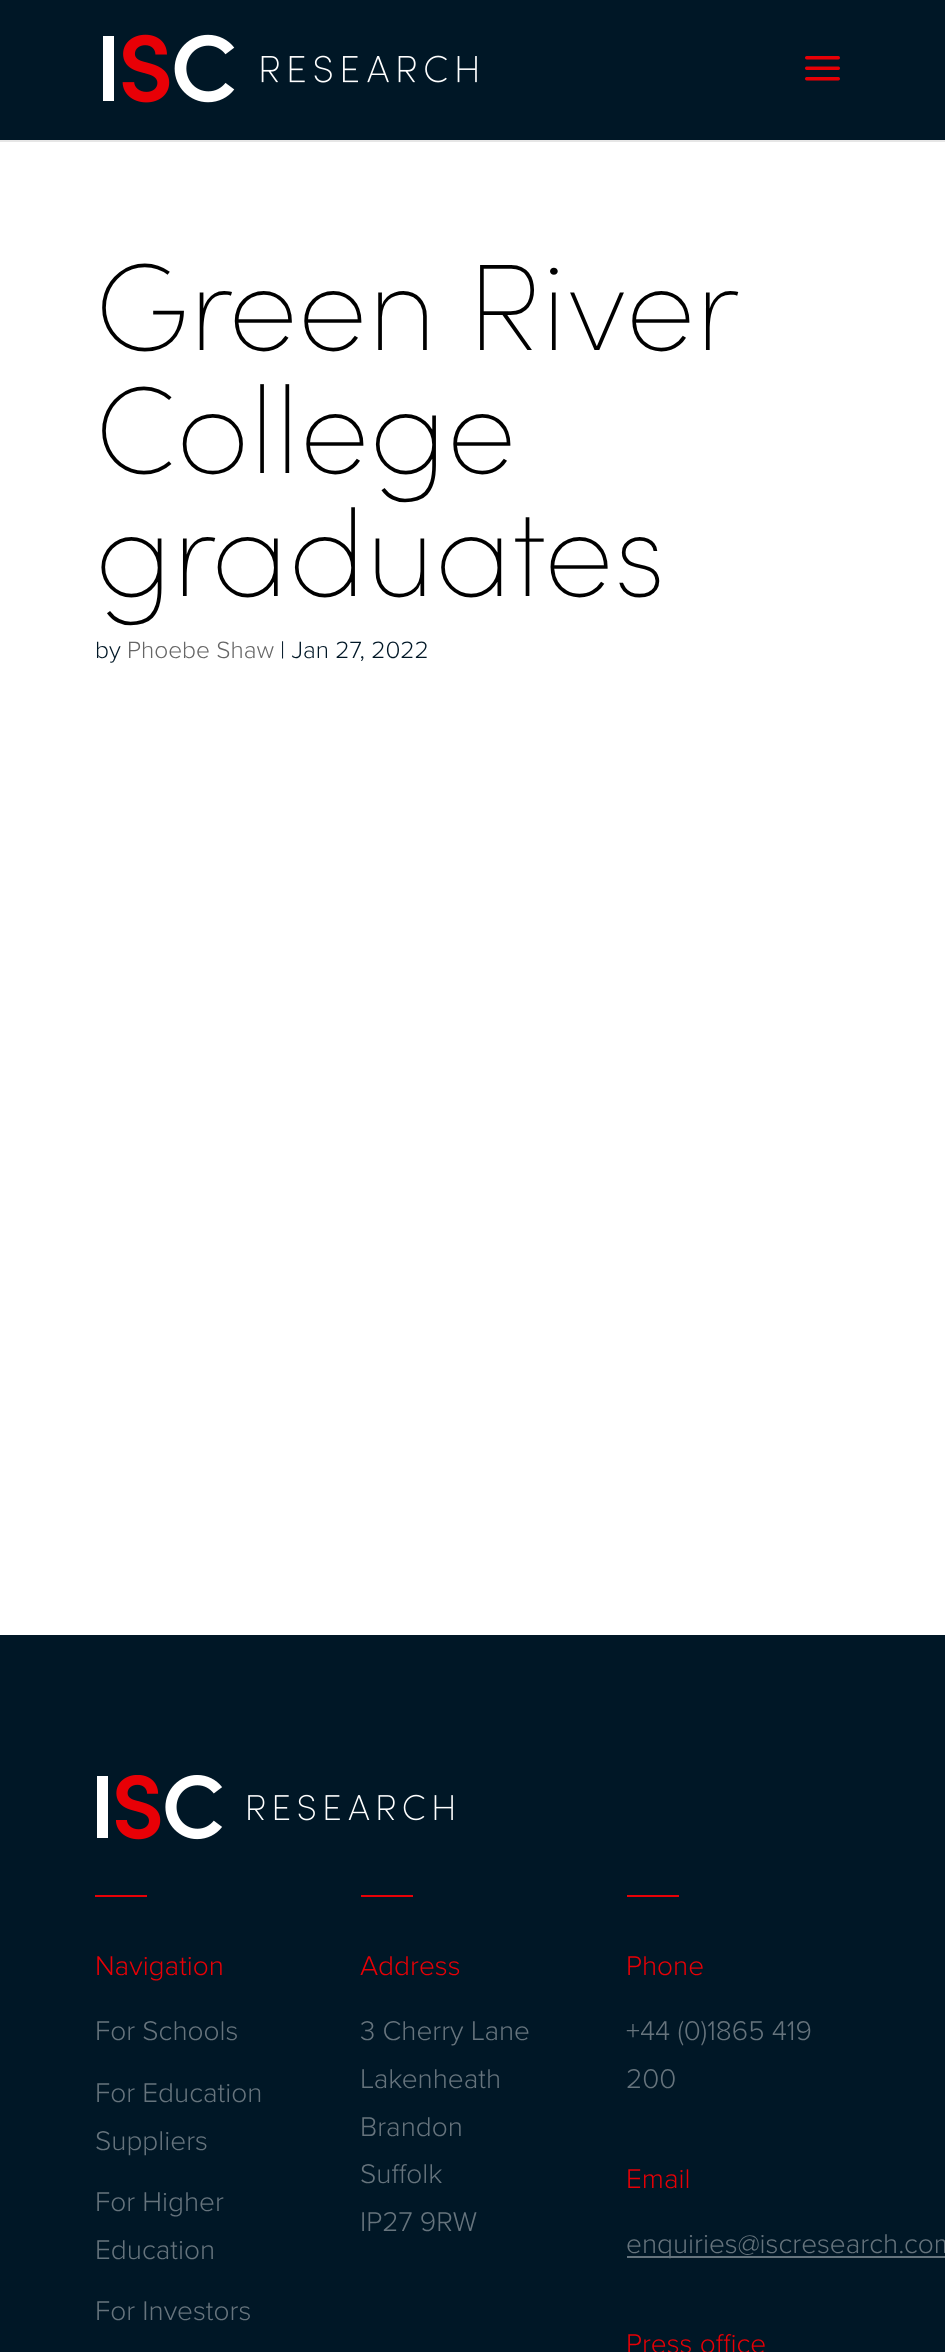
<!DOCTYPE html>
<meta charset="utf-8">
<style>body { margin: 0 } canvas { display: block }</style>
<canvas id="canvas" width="945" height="2352"></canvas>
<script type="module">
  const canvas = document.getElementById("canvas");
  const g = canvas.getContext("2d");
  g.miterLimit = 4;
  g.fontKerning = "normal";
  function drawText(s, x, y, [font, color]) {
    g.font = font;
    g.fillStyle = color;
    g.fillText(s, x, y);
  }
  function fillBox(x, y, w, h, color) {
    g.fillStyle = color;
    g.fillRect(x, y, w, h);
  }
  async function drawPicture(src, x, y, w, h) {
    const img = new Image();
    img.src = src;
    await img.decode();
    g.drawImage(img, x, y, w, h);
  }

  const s1 = ["200 123.25px Sofia", "#000000"];
  const s2 = ["300 24.5px Proxima Nova", "#001726"];
  const s3 = ["300 24.5px Proxima Nova", "#666666"];
  const s4 = ["300 28px Proxima Nova", "#E80006"];
  const s5 = ["300 28px Proxima Nova", "#66747D"];

  fillBox(0, 0, 945, 2352, "#FFFFFF");
  fillBox(0, 140, 945, 2, "#E6E6E6");
  fillBox(0, 0, 945, 140, "#001726");
  await drawPicture("pic1.png", 103, 34, 374, 69);
  await drawPicture("pic2.png", 805, 56, 35, 25);
  g.wordSpacing = "-4px";
  drawText("Green River", 95, 350, s1);
  g.wordSpacing = "0px";
  drawText("College", 95, 473, s1);
  drawText("graduates", 95, 596, s1);
  drawText("by", 95, 658, s2);
  drawText("Phoebe Shaw", 127, 658, s3);
  drawText("| Jan 27, 2022", 280, 658, s2);
  fillBox(0, 1635, 945, 717, "#001726");
  await drawPicture("pic3.png", 97, 1775, 356, 65);
  fillBox(95, 1895, 52, 2, "#E80006");
  drawText("Navigation", 95, 1975, s4);
  drawText("For Schools", 95, 2040, s5);
  drawText("For Education", 95, 2102, s5);
  drawText("Suppliers", 95, 2150, s5);
  drawText("For Higher", 95, 2211, s5);
  drawText("Education", 95, 2259, s5);
  drawText("For Investors", 95, 2320, s5);
  fillBox(361, 1895, 52, 2, "#E80006");
  drawText("Address", 360, 1975, s4);
  drawText("3 Cherry Lane", 360, 2040, s5);
  drawText("Lakenheath", 360, 2088, s5);
  drawText("Brandon", 360, 2136, s5);
  drawText("Suffolk", 360, 2183, s5);
  drawText("IP27 9RW", 360, 2231, s5);
  fillBox(627, 1895, 52, 2, "#E80006");
  drawText("Phone", 626, 1975, s4);
  drawText("+44 (0)1865 419", 626, 2040, s5);
  drawText("200", 626, 2088, s5);
  drawText("Email", 626, 2188, s4);
  fillBox(627, 2256, 318, 2, "#66747D");
  drawText("enquiries@iscresearch.com", 626, 2253, s5);
  drawText("Press office", 626, 2353, s4);
</script>
